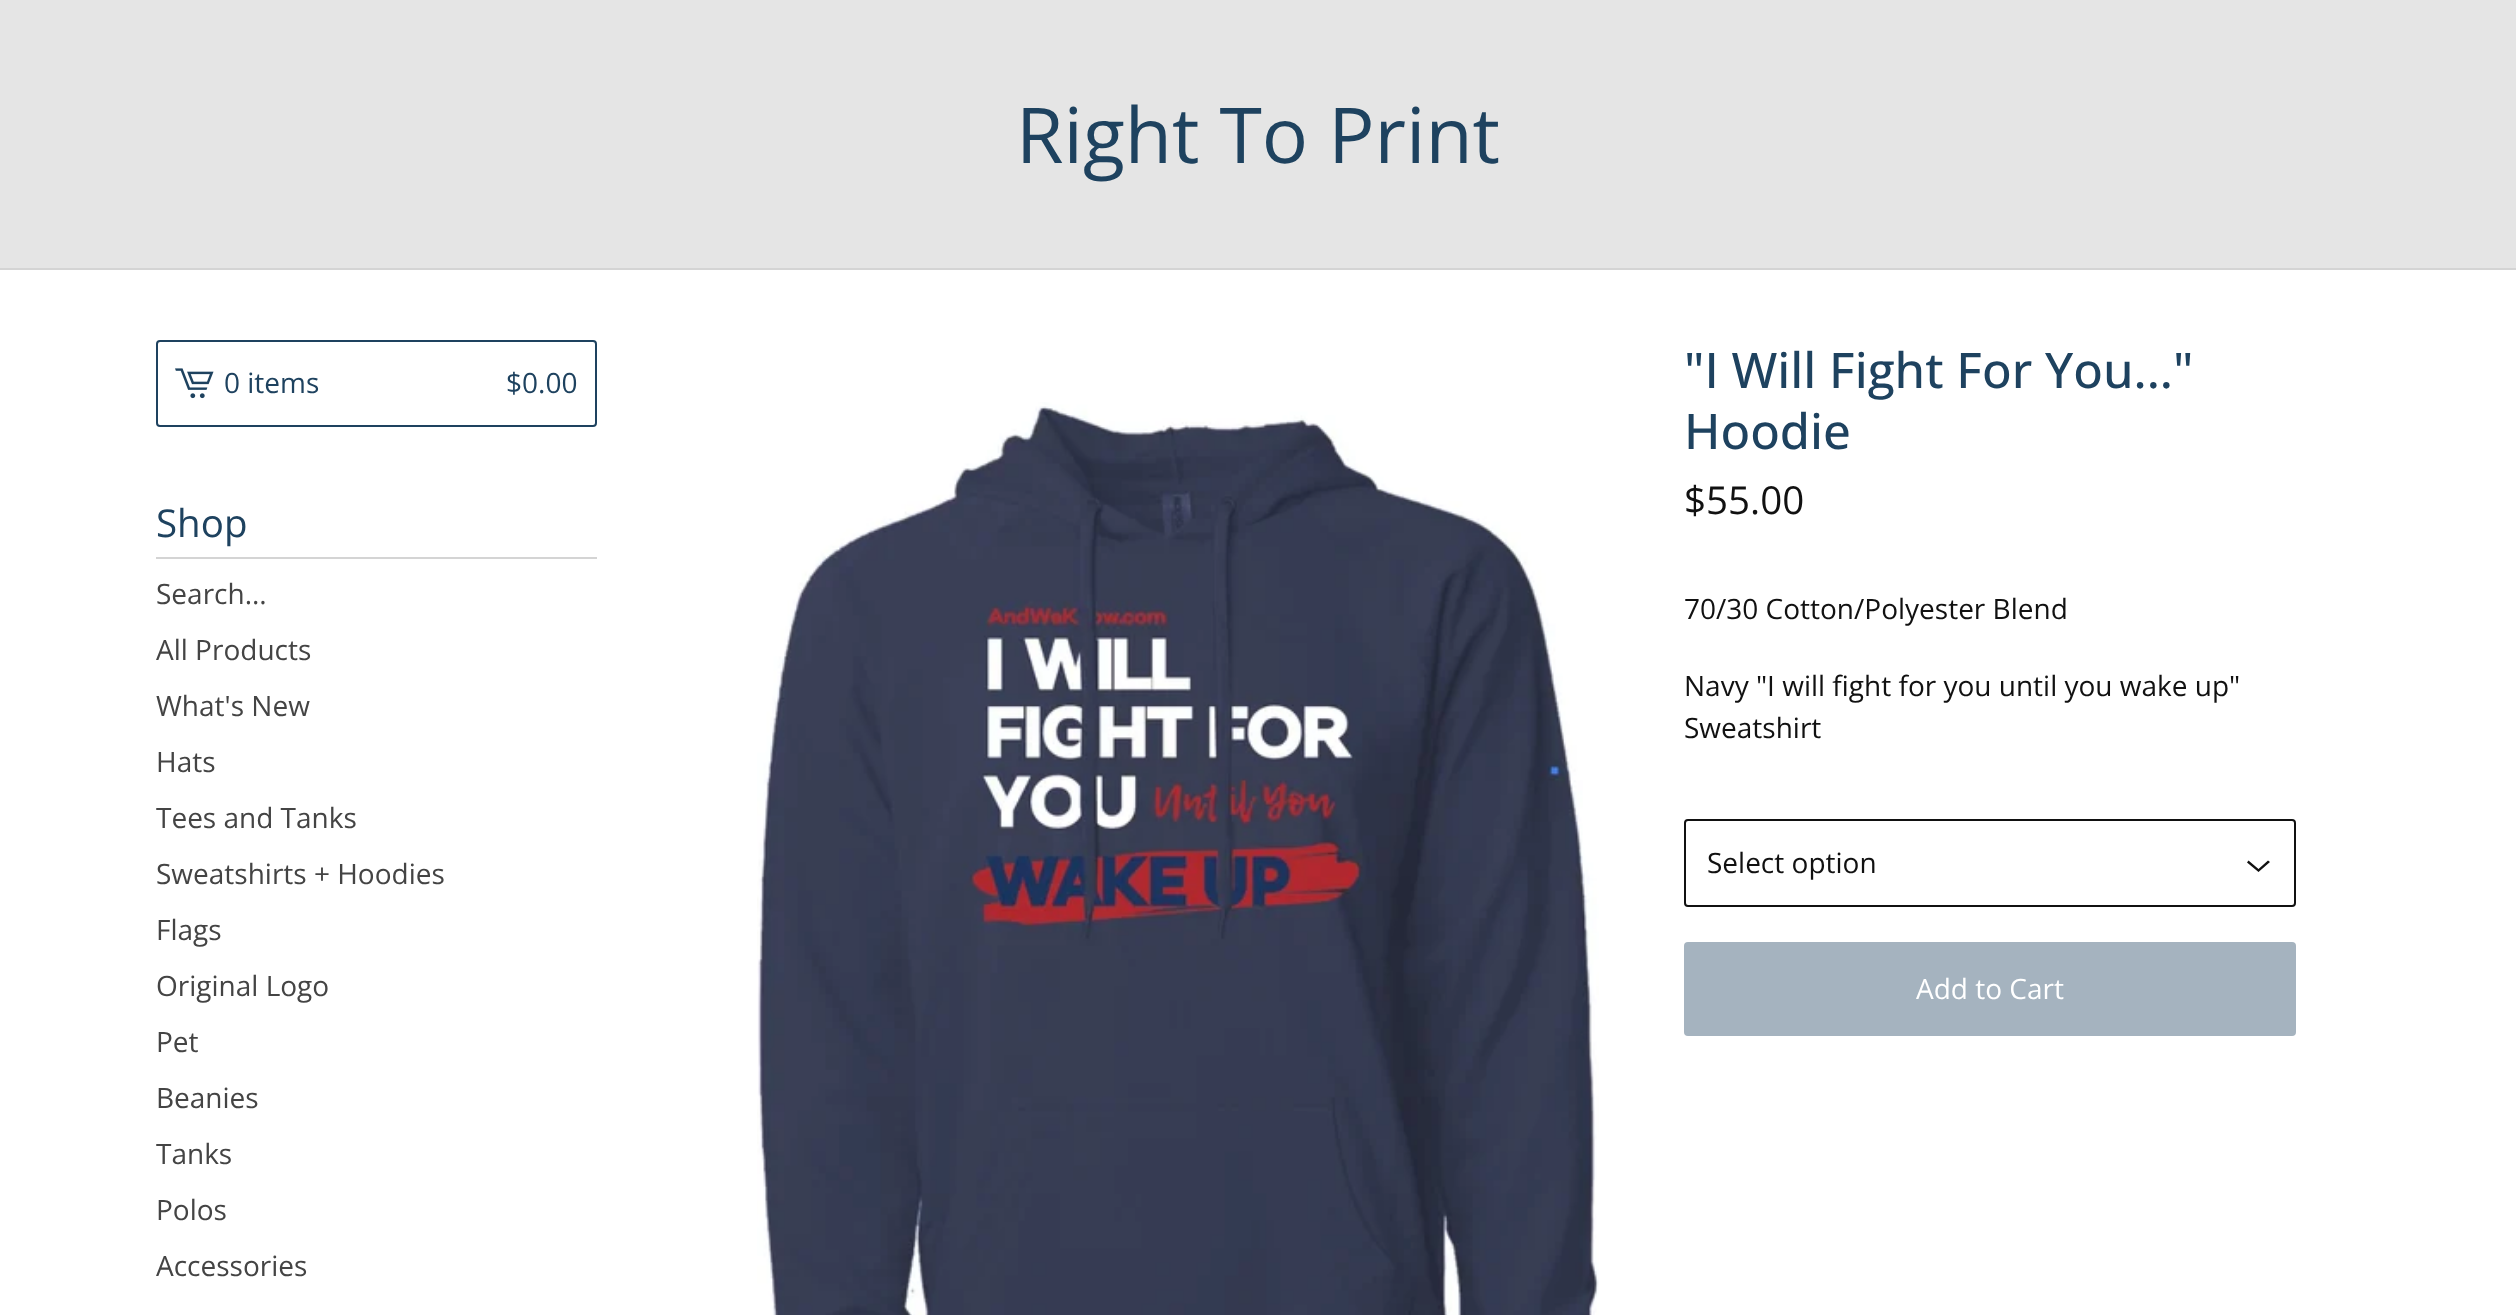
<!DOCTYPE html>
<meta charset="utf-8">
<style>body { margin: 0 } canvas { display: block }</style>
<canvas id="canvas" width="2516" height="1315"></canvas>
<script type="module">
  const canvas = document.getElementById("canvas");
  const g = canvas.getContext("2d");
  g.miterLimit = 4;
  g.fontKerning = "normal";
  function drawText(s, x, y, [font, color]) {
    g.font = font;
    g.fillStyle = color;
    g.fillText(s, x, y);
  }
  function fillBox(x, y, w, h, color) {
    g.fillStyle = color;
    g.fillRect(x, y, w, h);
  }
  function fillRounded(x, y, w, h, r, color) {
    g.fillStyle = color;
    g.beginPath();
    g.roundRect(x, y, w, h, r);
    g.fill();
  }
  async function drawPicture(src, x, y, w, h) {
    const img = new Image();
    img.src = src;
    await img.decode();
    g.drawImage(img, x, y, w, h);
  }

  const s1 = ["77px Open Sans", "#1E425F"];
  const s2 = ["28px Open Sans", "#1E425F"];
  const s3 = ["38.5px Open Sans", "#1E425F"];
  const s4 = ["28px Open Sans", "#444444"];
  const s5 = ["500 49px Open Sans", "#1E425F"];
  const s6 = ["38.5px Open Sans", "#111111"];
  const s7 = ["28px Open Sans", "#111111"];
  const s8 = ["28px Open Sans", "#FFFFFF"];

  fillBox(0, 0, 2516, 1315, "#FFFFFF");
  fillBox(0, 0, 2516, 268, "#E5E5E5");
  fillBox(0, 268, 2516, 2, "#D4D4D4");
  drawText("Right To Print", 1016, 163, s1);
  g.beginPath();
  g.roundRect(157, 341, 439, 85, 3);
  g.strokeStyle = "#1E425F";
  g.lineWidth = 2;
  g.stroke();
  await drawPicture("pic1.png", 175, 368, 39, 31);
  drawText("0 items", 224, 393, s2);
  drawText("$0.00", 506, 393, s2);
  fillBox(156, 557, 441, 2, "#D4D4D4");
  drawText("Shop", 156, 537, s3);
  drawText("Search...", 156, 604, s4);
  drawText("All Products", 156, 660, s4);
  drawText("What's New", 156, 716, s4);
  drawText("Hats", 156, 772, s4);
  drawText("Tees and Tanks", 156, 828, s4);
  drawText("Sweatshirts + Hoodies", 156, 884, s4);
  drawText("Flags", 156, 940, s4);
  drawText("Original Logo", 156, 996, s4);
  drawText("Pet", 156, 1052, s4);
  drawText("Beanies", 156, 1108, s4);
  drawText("Tanks", 156, 1164, s4);
  drawText("Polos", 156, 1220, s4);
  drawText("Accessories", 156, 1276, s4);
  await drawPicture("pic2.png", 757, 402, 842, 913);
  drawText("\"I Will Fight For You...\"", 1684, 388, s5);
  drawText("Hoodie", 1684, 449, s5);
  drawText("$55.00", 1684, 514, s6);
  drawText("70/30 Cotton/Polyester Blend", 1684, 619, s7);
  drawText("Navy \"I will fight for you until you wake up\"", 1684, 696, s7);
  drawText("Sweatshirt", 1684, 738, s7);
  g.beginPath();
  g.roundRect(1685, 820, 610, 86, 3);
  g.strokeStyle = "#111111";
  g.stroke();
  drawText("Select option", 1707, 873, s7);
  g.beginPath();
  g.moveTo(2270, 862);
  g.lineTo(2258.5, 872);
  g.lineTo(2247, 862.5);
  g.lineTo(2248.5, 860.5);
  g.lineTo(2258.5, 869);
  g.lineTo(2268, 860.5);
  g.closePath();
  g.fill();
  fillRounded(1684, 942, 612, 94, 4, "#A5B3BF");
  drawText("Add to Cart", 1916, 999, s8);
</script>
